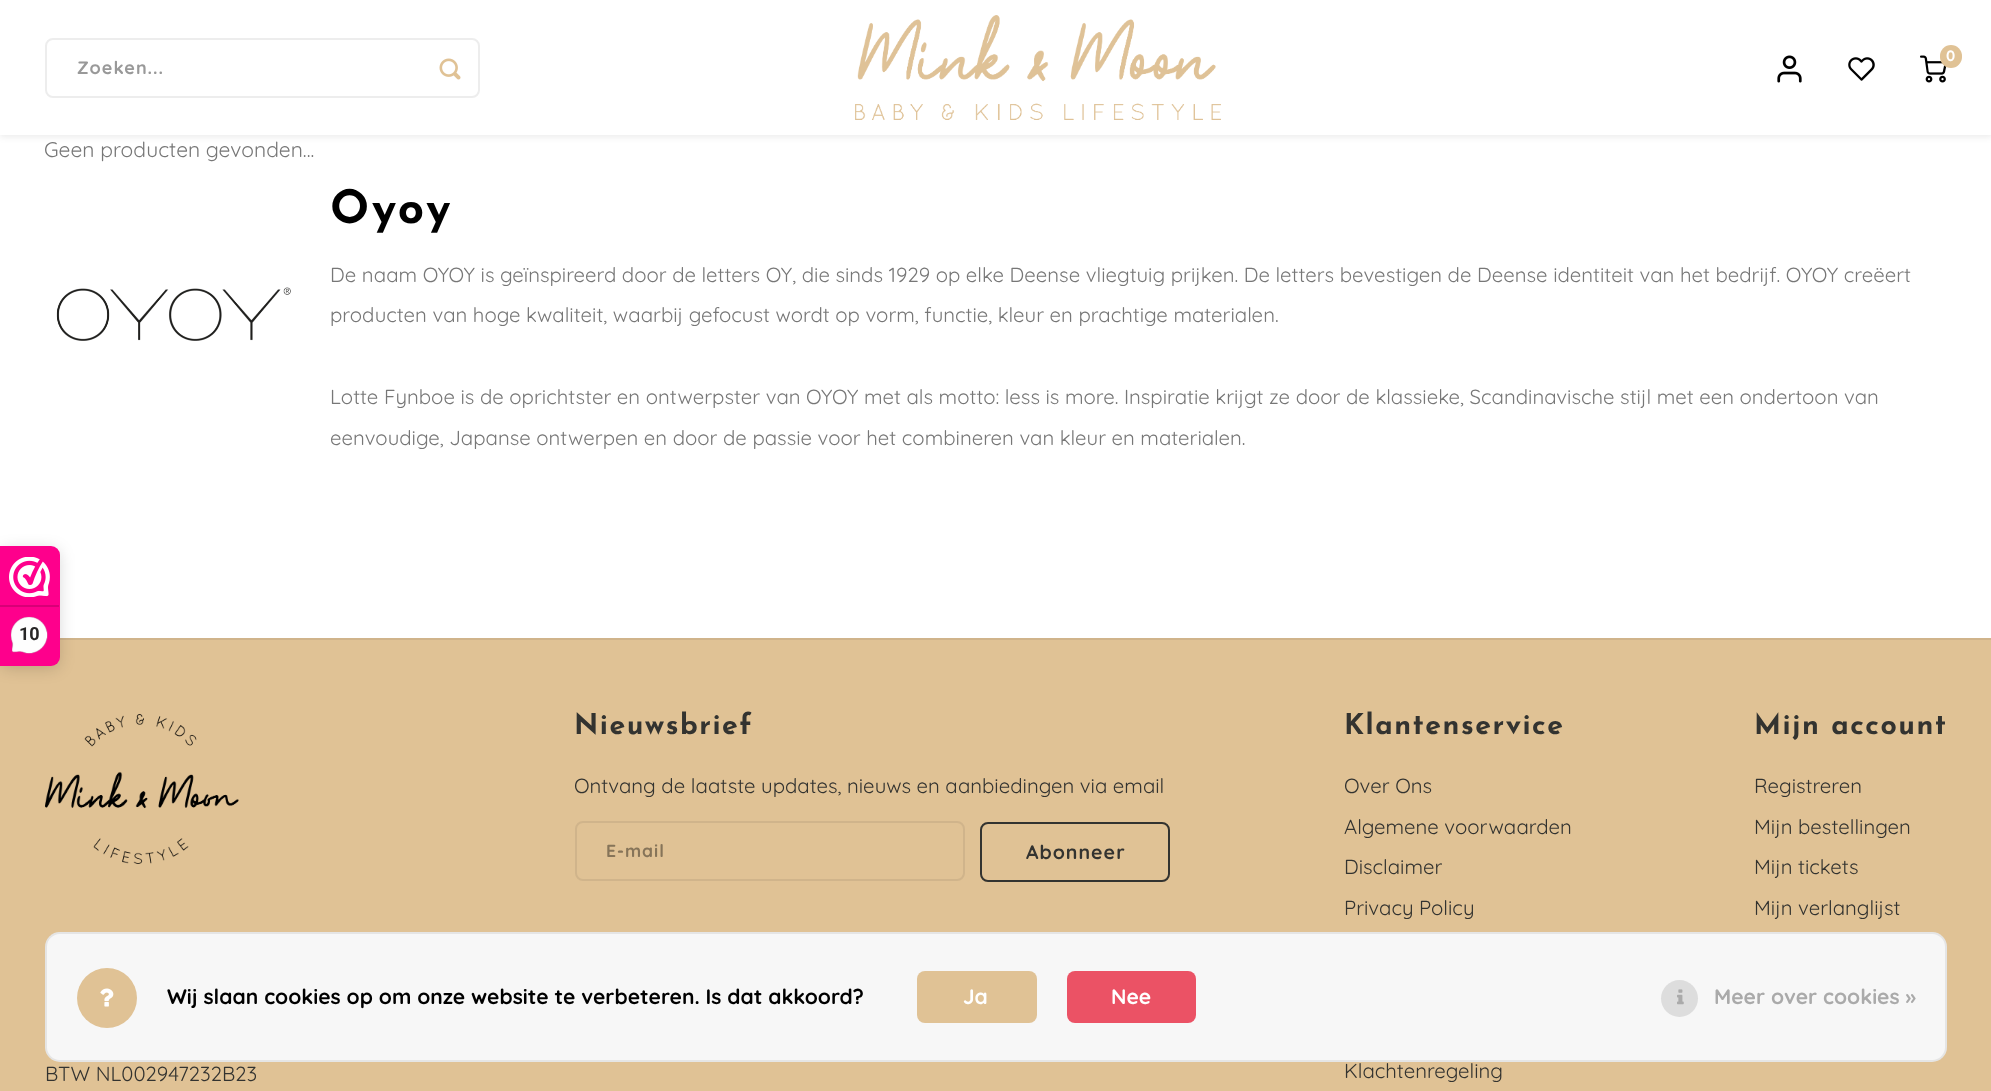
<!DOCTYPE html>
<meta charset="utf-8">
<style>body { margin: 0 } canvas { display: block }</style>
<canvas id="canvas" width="1991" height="1091"></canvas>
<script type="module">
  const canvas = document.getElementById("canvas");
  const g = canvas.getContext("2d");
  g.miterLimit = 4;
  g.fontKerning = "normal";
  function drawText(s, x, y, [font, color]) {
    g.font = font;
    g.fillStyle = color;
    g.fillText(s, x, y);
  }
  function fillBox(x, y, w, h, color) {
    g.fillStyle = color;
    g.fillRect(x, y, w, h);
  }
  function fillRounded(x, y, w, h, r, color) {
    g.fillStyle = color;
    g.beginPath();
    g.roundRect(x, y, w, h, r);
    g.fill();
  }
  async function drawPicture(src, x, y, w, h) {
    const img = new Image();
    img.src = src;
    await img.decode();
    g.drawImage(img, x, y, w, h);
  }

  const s1 = ["bold 15px Quicksand", "#FFFFFF"];
  const s2 = ["bold 18px Quicksand", "#999999"];
  const s3 = ["21px Quicksand", "#777777"];
  const s4 = ["bold 46px Josefin Sans", "#000000"];
  const s5 = ["20.37px Quicksand", "#777777"];
  const s6 = ["bold 18px Roboto", "#272626"];
  const s7 = ["bold 28.5px Josefin Sans", "#333330"];
  const s8 = ["20.37px Quicksand", "#333330"];
  const s9 = ["bold 17.5px Quicksand", "#867459"];
  const s10 = ["bold 19.5px Quicksand", "#333330"];
  const s11 = ["bold 21px Quicksand", "#000000"];
  const s12 = ["bold 21px Quicksand", "#FFFFFF"];
  const s13 = ["bold 21px Quicksand", "#AAAAAA"];

  fillBox(0, 0, 1991, 1091, "#FFFFFF");
  g.fillStyle = "rgba(0, 0, 0, 0.08)";
  g.filter = "blur(3px)";
  g.beginPath();
  g.rect(0, 2, 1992, 135);
  g.fill();
  g.filter = "none";
  fillBox(0, 0, 1991, 135, "#FFFFFF");
  await drawPicture("pic1.png", 855, 15, 366, 105);
  await drawPicture("pic2.png", 1777, 55, 25, 28);
  await drawPicture("pic3.png", 1848, 57, 27, 24);
  await drawPicture("pic4.png", 1920, 55, 27, 28);
  fillRounded(1940, 45, 22, 23, 11, "#E0C295");
  drawText("0", 1946, 61, s1);
  g.beginPath();
  g.roundRect(46, 39, 433, 58, 7);
  g.strokeStyle = "#EDEDED";
  g.lineWidth = 2;
  g.stroke();
  g.letterSpacing = "1px";
  drawText("Zoeken...", 77, 74, s2);
  await drawPicture("pic5.png", 439, 58, 22, 22);
  g.letterSpacing = "0px";
  drawText("Geen producten gevonden...", 44, 157, s3);
  await drawPicture("pic6.png", 56, 287, 235, 54);
  g.letterSpacing = "2.5px";
  drawText("Oyoy", 330, 223, s4);
  g.letterSpacing = "0px";
  drawText("De naam OYOY is geïnspireerd door de letters OY, die sinds 1929 op elke Deense vliegtuig prijken. De letters bevestigen de Deense identiteit van het bedrijf. OYOY creëert", 330, 282, s5);
  drawText("producten van hoge kwaliteit, waarbij gefocust wordt op vorm, functie, kleur en prachtige materialen.", 330, 322, s5);
  drawText("Lotte Fynboe is de oprichtster en ontwerpster van OYOY met als motto: less is more. Inspiratie krijgt ze door de klassieke, Scandinavische stijl met een ondertoon van", 330, 404, s5);
  drawText("eenvoudige, Japanse ontwerpen en door de passie voor het combineren van kleur en materialen.", 330, 445, s5);
  fillBox(0, 640, 1991, 451, "#E0C295");
  fillBox(60, 638, 1931, 2, "#D0B48B");
  g.fillStyle = "rgba(0, 0, 0, 0.15)";
  g.filter = "blur(7.5px)";
  g.beginPath();
  g.roundRect(0, 549, 60, 120, 9);
  g.fill();
  g.filter = "none";
  g.fillStyle = "#FE008C";
  g.beginPath();
  g.roundRect(0, 546, 60, 120, [0, 9, 9, 0]);
  g.fill();
  await drawPicture("pic7.png", 9, 557, 41, 40);
  fillBox(0, 605, 59, 2, "#D80077");
  await drawPicture("pic8.png", 10, 616, 38, 38);
  drawText("10", 19, 640, s6);
  g.letterSpacing = "1.5px";
  drawText("Nieuwsbrief", 574, 734, s7);
  g.letterSpacing = "0px";
  drawText("Ontvang de laatste updates, nieuws en aanbiedingen via email", 574, 793, s8);
  g.beginPath();
  g.roundRect(576, 822, 388, 58, 7);
  g.strokeStyle = "#D0B48B";
  g.stroke();
  g.letterSpacing = "1px";
  drawText("E-mail", 606, 857, s9);
  g.beginPath();
  g.roundRect(981, 823, 188, 58, 7);
  g.strokeStyle = "#333330";
  g.stroke();
  drawText("Abonneer", 1026, 859, s10);
  g.letterSpacing = "1.5px";
  drawText("Klantenservice", 1344, 734, s7);
  g.letterSpacing = "0px";
  drawText("Over Ons", 1344, 793, s8);
  drawText("Algemene voorwaarden", 1344, 834, s8);
  drawText("Disclaimer", 1344, 874, s8);
  drawText("Privacy Policy", 1344, 915, s8);
  drawText("Klachtenregeling", 1344, 1078, s8);
  g.letterSpacing = "1.5px";
  drawText("Mijn account", 1754, 734, s7);
  g.letterSpacing = "0px";
  drawText("Registreren", 1754, 793, s8);
  drawText("Mijn bestellingen", 1754, 834, s8);
  drawText("Mijn tickets", 1754, 874, s8);
  drawText("Mijn verlanglijst", 1754, 915, s8);
  await drawPicture("pic9.png", 45, 714, 194, 150);
  drawText("BTW NL002947232B23", 45, 1081, s8);
  fillRounded(45, 932, 1902, 130, 15, "#F7F7F7");
  g.beginPath();
  g.roundRect(46, 933, 1900, 128, 14);
  g.strokeStyle = "rgba(0, 0, 0, 0.07)";
  g.stroke();
  g.fillStyle = "#E0C295";
  g.beginPath();
  g.arc(107, 998, 30, 0, Math.PI * 2);
  g.fill();
  await drawPicture("pic10.png", 100, 988, 14, 19);
  drawText("Wij slaan cookies op om onze website te verbeteren. Is dat akkoord?", 167, 1004, s11);
  fillRounded(917, 971, 120, 52, 8, "#E0C295");
  drawText("Ja", 963, 1004, s12);
  fillRounded(1067, 971, 129, 52, 8, "#EB5265");
  drawText("Nee", 1111, 1004, s12);
  g.fillStyle = "#DDDDDD";
  g.beginPath();
  g.arc(1679.5, 998.5, 18.5, 0, Math.PI * 2);
  g.fill();
  await drawPicture("pic11.png", 1677, 989, 7, 16);
  drawText("Meer over cookies »", 1714, 1004, s13);
</script>
